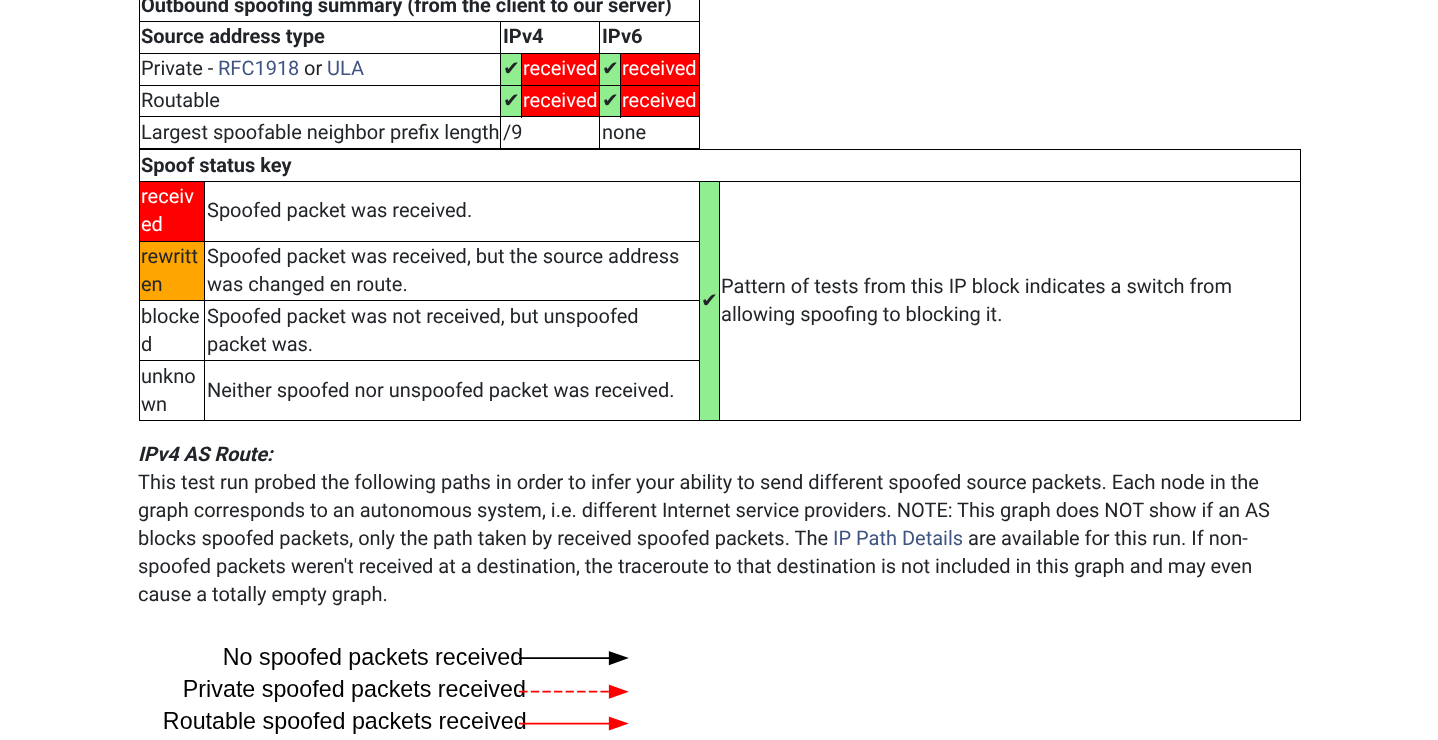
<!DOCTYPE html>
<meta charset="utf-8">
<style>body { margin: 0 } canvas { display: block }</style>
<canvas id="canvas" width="1438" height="740"></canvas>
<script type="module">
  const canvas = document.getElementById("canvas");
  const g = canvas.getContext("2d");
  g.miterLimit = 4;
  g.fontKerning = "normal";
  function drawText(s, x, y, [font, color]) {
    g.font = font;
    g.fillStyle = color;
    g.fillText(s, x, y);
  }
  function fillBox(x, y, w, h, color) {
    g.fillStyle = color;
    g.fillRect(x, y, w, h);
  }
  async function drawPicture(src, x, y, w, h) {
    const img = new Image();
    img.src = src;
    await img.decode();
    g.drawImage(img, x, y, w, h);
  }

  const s1 = ["bold 20px Roboto", "#212529"];
  const s2 = ["20px Roboto", "#212529"];
  const s3 = ["20px Roboto", "#3F5481"];
  const s4 = ["20px DejaVu Sans", "#212529"];
  const s5 = ["20px Roboto", "#FFFFFF"];
  const s6 = ["italic bold 20px Roboto", "#212529"];

  fillBox(0, 0, 1438, 740, "#FFFFFF");
  fillBox(699, 0, 1, 149, "#000000");
  fillBox(139, 148, 561, 1, "#000000");
  fillBox(139, 0, 1, 149, "#000000");
  drawText("Outbound spoofing summary (from the client to our server)", 141, 12, s1);
  fillBox(599, 21, 101, 1, "#000000");
  fillBox(620, 53, 80, 1, "#000000");
  fillBox(620, 85, 80, 1, "#000000");
  fillBox(599, 116, 101, 1, "#000000");
  fillBox(620, 85, 1, 33, "#000000");
  fillBox(599, 85, 22, 1, "#000000");
  fillBox(620, 53, 1, 33, "#000000");
  fillBox(599, 53, 22, 1, "#000000");
  fillBox(599, 116, 1, 33, "#000000");
  fillBox(500, 116, 100, 1, "#000000");
  fillBox(599, 85, 1, 33, "#000000");
  fillBox(521, 85, 79, 1, "#000000");
  fillBox(599, 53, 1, 33, "#000000");
  fillBox(521, 53, 79, 1, "#000000");
  fillBox(599, 21, 1, 33, "#000000");
  fillBox(500, 21, 100, 1, "#000000");
  fillBox(521, 85, 1, 33, "#000000");
  fillBox(500, 85, 23, 1, "#000000");
  fillBox(521, 53, 1, 33, "#000000");
  fillBox(500, 53, 23, 1, "#000000");
  fillBox(500, 116, 1, 33, "#000000");
  fillBox(139, 116, 362, 1, "#000000");
  fillBox(500, 85, 1, 33, "#000000");
  fillBox(139, 85, 362, 1, "#000000");
  fillBox(500, 53, 1, 33, "#000000");
  fillBox(139, 53, 362, 1, "#000000");
  fillBox(500, 21, 1, 33, "#000000");
  fillBox(139, 21, 362, 1, "#000000");
  drawText("Source address type", 141, 43, s1);
  drawText("IPv4", 503, 43, s1);
  drawText("IPv6", 602, 43, s1);
  drawText("Private -", 141, 75, s2);
  drawText("RFC1918", 218, 75, s3);
  drawText("or", 304, 75, s2);
  drawText("ULA", 327, 75, s3);
  fillBox(501, 54, 20, 31, "#90EE90");
  drawText("✔", 503, 75, s4);
  fillBox(522, 54, 77, 31, "#FF0000");
  drawText("received", 523, 75, s5);
  fillBox(600, 54, 20, 31, "#90EE90");
  drawText("✔", 602, 75, s4);
  fillBox(621, 54, 78, 31, "#FF0000");
  drawText("received", 622, 75, s5);
  drawText("Routable", 141, 107, s2);
  fillBox(501, 86, 20, 30, "#90EE90");
  drawText("✔", 503, 107, s4);
  fillBox(522, 86, 77, 30, "#FF0000");
  drawText("received", 523, 107, s5);
  fillBox(600, 86, 20, 30, "#90EE90");
  drawText("✔", 602, 107, s4);
  fillBox(621, 86, 78, 30, "#FF0000");
  drawText("received", 622, 107, s5);
  drawText("Largest spoofable neighbor prefix length", 141, 139, s2);
  drawText("/9", 503, 139, s2);
  drawText("none", 602, 139, s2);
  fillBox(139, 149, 1162, 1, "#000000");
  fillBox(1300, 149, 1, 272, "#000000");
  fillBox(139, 420, 1162, 1, "#000000");
  fillBox(139, 149, 1, 272, "#000000");
  drawText("Spoof status key", 141, 172, s1);
  fillBox(140, 182, 64, 59, "#FF0000");
  fillBox(719, 181, 582, 1, "#000000");
  fillBox(719, 181, 1, 240, "#000000");
  fillBox(699, 181, 21, 1, "#000000");
  fillBox(204, 241, 496, 1, "#000000");
  fillBox(204, 300, 496, 1, "#000000");
  fillBox(204, 360, 496, 1, "#000000");
  fillBox(699, 181, 1, 240, "#000000");
  fillBox(204, 181, 496, 1, "#000000");
  fillBox(204, 360, 1, 61, "#000000");
  fillBox(139, 360, 66, 1, "#000000");
  fillBox(204, 300, 1, 61, "#000000");
  fillBox(139, 300, 66, 1, "#000000");
  fillBox(204, 241, 1, 60, "#000000");
  fillBox(139, 241, 66, 1, "#000000");
  fillBox(204, 181, 1, 62, "#000000");
  fillBox(139, 181, 66, 1, "#000000");
  drawText("receiv", 141, 203, s5);
  drawText("ed", 141, 231, s5);
  drawText("Spoofed packet was received.", 207, 217, s2);
  fillBox(700, 182, 19, 238, "#90EE90");
  drawText("✔", 701, 307, s4);
  drawText("Pattern of tests from this IP block indicates a switch from", 721, 293, s2);
  drawText("allowing spoofing to blocking it.", 721, 321, s2);
  fillBox(140, 242, 64, 58, "#FFA500");
  drawText("rewritt", 141, 263, s2);
  drawText("en", 141, 291, s2);
  drawText("Spoofed packet was received, but the source address", 207, 263, s2);
  drawText("was changed en route.", 207, 291, s2);
  drawText("blocke", 141, 323, s2);
  drawText("d", 141, 351, s2);
  drawText("Spoofed packet was not received, but unspoofed", 207, 323, s2);
  drawText("packet was.", 207, 351, s2);
  drawText("unkno", 141, 383, s2);
  drawText("wn", 141, 411, s2);
  drawText("Neither spoofed nor unspoofed packet was received.", 207, 397, s2);
  drawText("IPv4 AS Route:", 138, 461, s6);
  drawText("This test run probed the following paths in order to infer your ability to send different spoofed source packets. Each node in the", 138, 489, s2);
  drawText("graph corresponds to an autonomous system, i.e. different Internet service providers. NOTE:", 138, 517, s2);
  drawText("This graph does NOT show if an AS", 957, 517, s2);
  drawText("blocks spoofed packets, only the path taken by received spoofed packets. The", 138, 545, s2);
  drawText("IP Path Details", 833, 545, s3);
  drawText("are available for this run. If non-", 968, 545, s2);
  drawText("spoofed packets weren't received at a destination, the traceroute to that destination is not included in this graph and may even", 138, 573, s2);
  drawText("cause a totally empty graph.", 138, 601, s2);
  await drawPicture("pic1.png", 164, 648, 465, 86);
</script>
